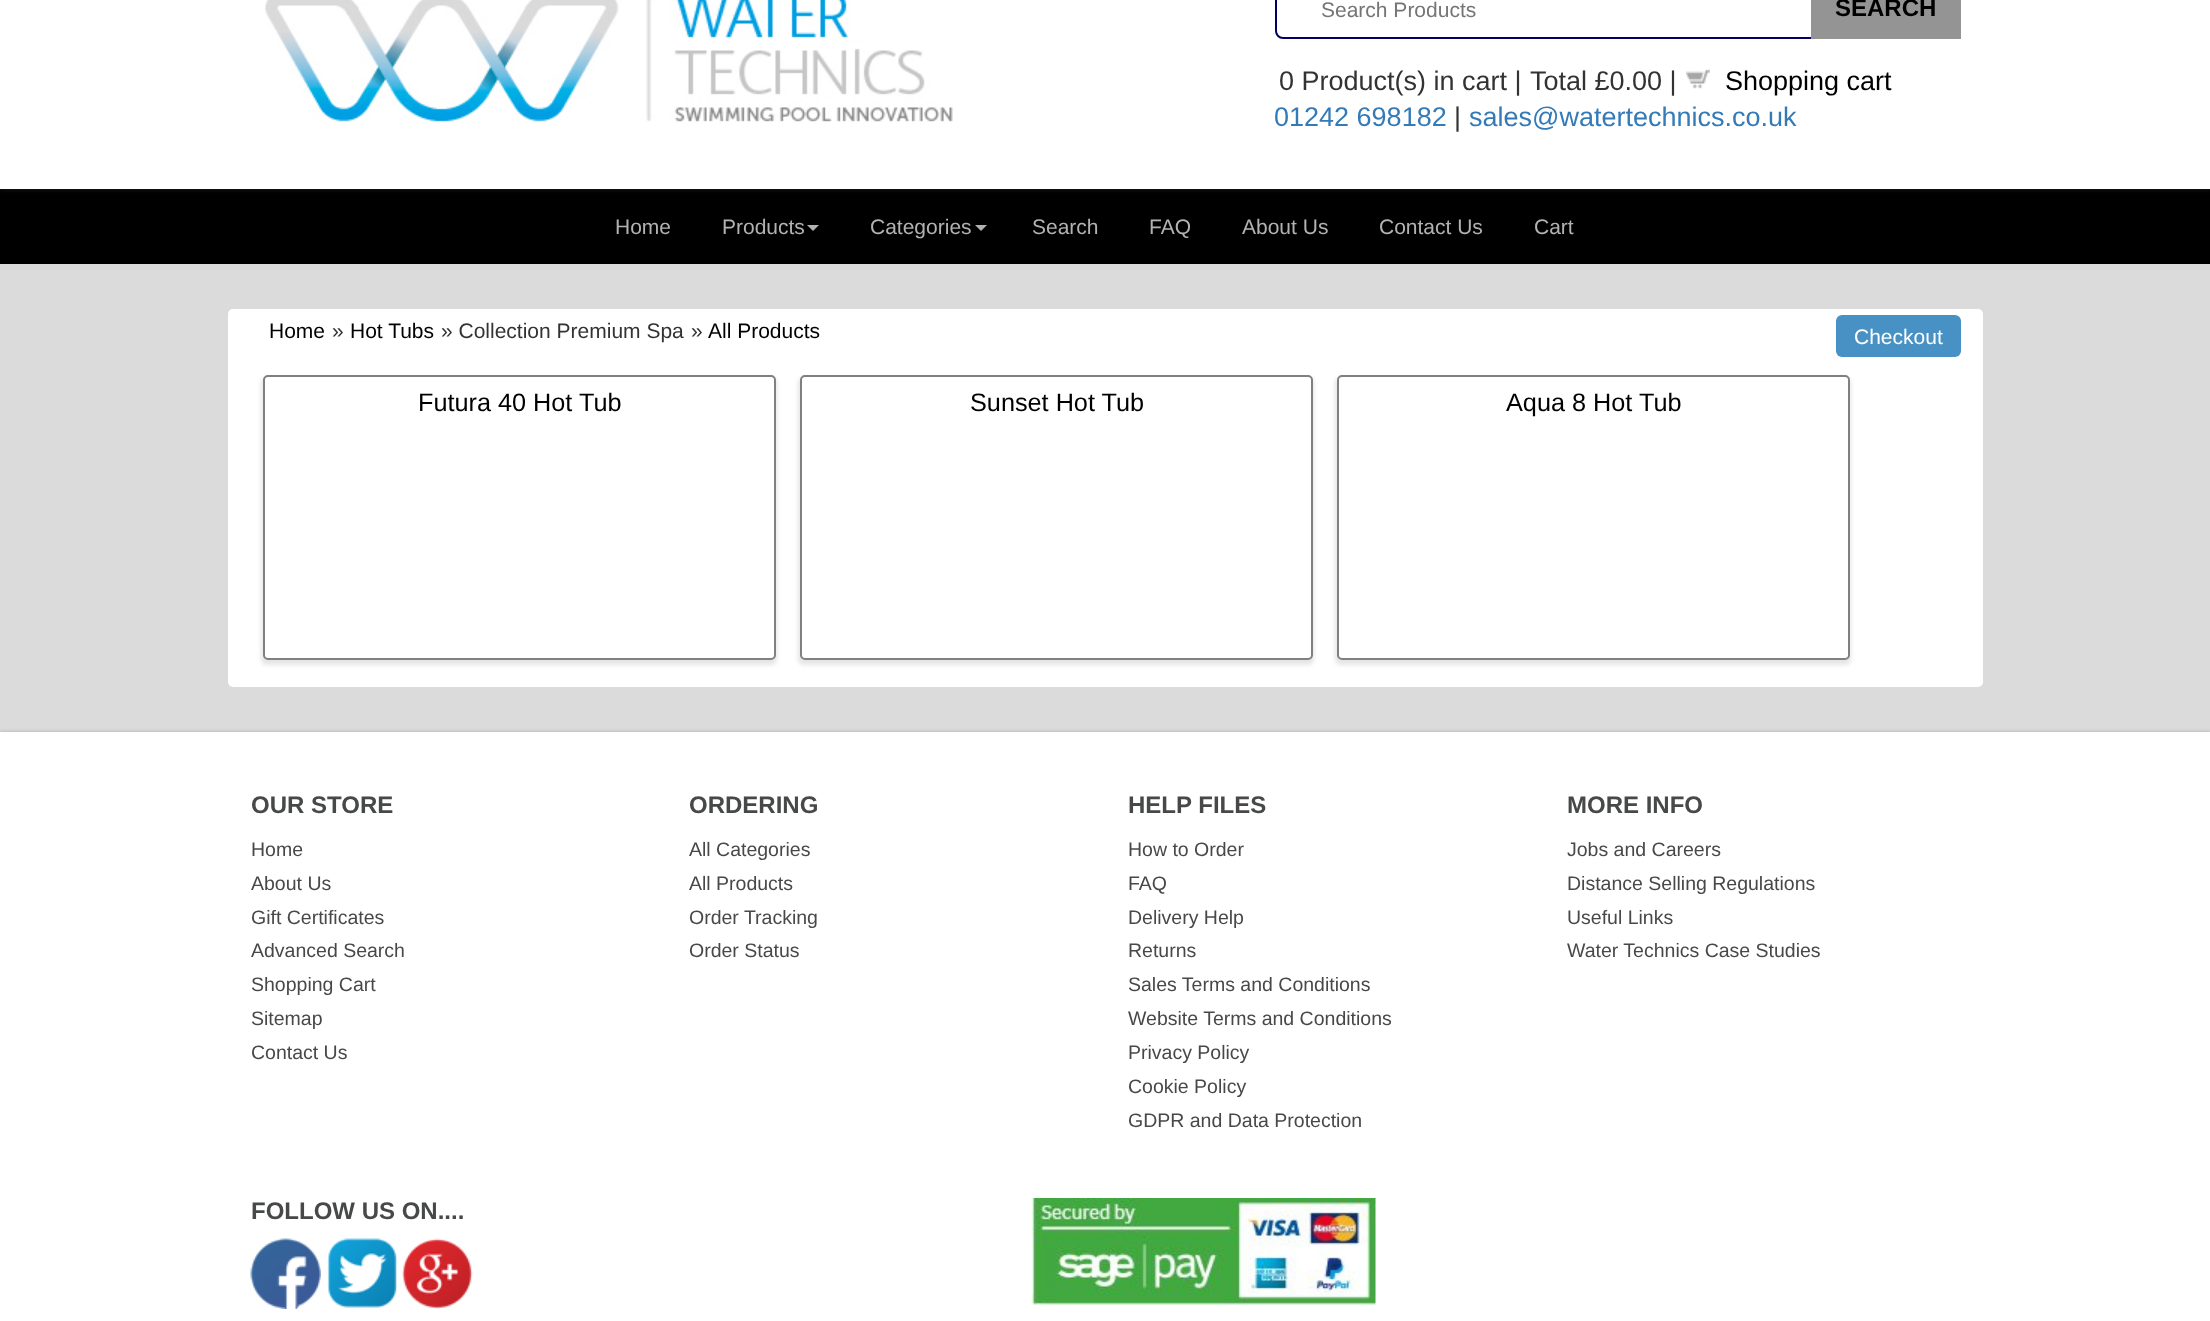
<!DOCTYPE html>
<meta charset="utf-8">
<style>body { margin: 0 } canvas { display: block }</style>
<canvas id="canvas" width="2210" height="1321"></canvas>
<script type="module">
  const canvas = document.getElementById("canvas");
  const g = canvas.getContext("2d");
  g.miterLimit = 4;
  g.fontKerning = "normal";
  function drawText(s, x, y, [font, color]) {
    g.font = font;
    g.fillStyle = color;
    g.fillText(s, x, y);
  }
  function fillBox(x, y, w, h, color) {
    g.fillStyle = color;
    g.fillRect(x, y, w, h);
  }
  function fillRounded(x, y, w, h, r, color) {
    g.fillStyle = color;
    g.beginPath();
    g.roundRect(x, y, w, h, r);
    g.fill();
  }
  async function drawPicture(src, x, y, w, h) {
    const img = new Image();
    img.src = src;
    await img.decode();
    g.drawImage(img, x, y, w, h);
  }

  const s1 = ["21px Liberation Sans", "#757575"];
  const s2 = ["bold 24px Liberation Sans", "#000000"];
  const s3 = ["27px Liberation Sans", "#333333"];
  const s4 = ["27px Liberation Sans", "#000000"];
  const s5 = ["27px Liberation Sans", "#337AB7"];
  const s6 = ["21px Liberation Sans", "#B2B2B2"];
  const s7 = ["21px Liberation Sans", "#000000"];
  const s8 = ["21px Liberation Sans", "#333333"];
  const s9 = ["21px Liberation Sans", "#FFFFFF"];
  const s10 = ["25.25px Liberation Sans", "#000000"];
  const s11 = ["bold 24px Liberation Sans", "#474948"];
  const s12 = ["19.5px Liberation Sans", "#474948"];

  fillBox(0, 0, 2210, 1321, "#DBDBDB");
  fillBox(0, 189, 2210, 75, "#000000");
  g.fillStyle = "rgba(71, 73, 72, 0.2)";
  g.filter = "blur(1.5px)";
  g.beginPath();
  g.rect(0, -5, 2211, 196);
  g.fill();
  g.filter = "none";
  fillBox(0, 0, 2210, 189, "#FFFFFF");
  await drawPicture("pic1.png", 265, 0, 688, 122);
  g.beginPath();
  g.roundRect(1276, -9, 684, 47, 7);
  g.strokeStyle = "#000066";
  g.lineWidth = 2;
  g.stroke();
  drawText("Search Products", 1321, 17, s1);
  fillBox(1811, 0, 150, 39, "#949494");
  drawText("SEARCH", 1835, 16, s2);
  drawText("0 Product(s) in cart |", 1279, 90, s3);
  drawText("Total £0.00 |", 1530, 90, s3);
  await drawPicture("pic2.png", 1686, 69, 24, 20);
  drawText("Shopping cart", 1725, 90, s4);
  drawText("01242 698182", 1274, 126, s5);
  drawText("|", 1454, 126, s3);
  drawText("sales@watertechnics.co.uk", 1469, 126, s5);
  drawText("Home", 615, 234, s6);
  drawText("Products", 722, 234, s6);
  g.beginPath();
  g.moveTo(807, 225);
  g.lineTo(819, 225);
  g.lineTo(813, 231);
  g.closePath();
  g.fill();
  drawText("Categories", 870, 234, s6);
  g.beginPath();
  g.moveTo(975, 225);
  g.lineTo(987, 225);
  g.lineTo(981, 231);
  g.closePath();
  g.fill();
  drawText("Search", 1032, 234, s6);
  drawText("FAQ", 1149, 234, s6);
  drawText("About Us", 1242, 234, s6);
  drawText("Contact Us", 1379, 234, s6);
  drawText("Cart", 1534, 234, s6);
  fillRounded(228, 309, 1755, 378, 5, "#FFFFFF");
  drawText("Home", 269, 338, s7);
  drawText("»", 332, 338, s8);
  drawText("Hot Tubs", 350, 338, s7);
  drawText("» Collection Premium Spa", 441, 338, s8);
  drawText("»", 691, 338, s8);
  drawText("All Products", 708, 338, s7);
  fillRounded(1836, 315, 125, 42, 6, "#4891C5");
  drawText("Checkout", 1854, 344, s9);
  g.fillStyle = "rgba(0, 0, 0, 0.1)";
  g.filter = "blur(2px)";
  g.beginPath();
  g.roundRect(261, 377, 516, 288, 6);
  g.fill();
  g.filter = "none";
  g.fillStyle = "#FFFFFF";
  g.beginPath();
  g.roundRect(264, 376, 511, 283, 4);
  g.fill();
  g.strokeStyle = "#808080";
  g.stroke();
  drawText("Futura 40 Hot Tub", 418, 411, s10);
  g.fillStyle = "rgba(0, 0, 0, 0.1)";
  g.filter = "blur(2px)";
  g.beginPath();
  g.roundRect(798, 377, 516, 288, 6);
  g.fill();
  g.filter = "none";
  g.fillStyle = "#FFFFFF";
  g.beginPath();
  g.roundRect(801, 376, 511, 283, 4);
  g.fill();
  g.stroke();
  drawText("Sunset Hot Tub", 970, 411, s10);
  g.fillStyle = "rgba(0, 0, 0, 0.1)";
  g.filter = "blur(2px)";
  g.beginPath();
  g.roundRect(1335, 377, 516, 288, 6);
  g.fill();
  g.filter = "none";
  g.fillStyle = "#FFFFFF";
  g.beginPath();
  g.roundRect(1338, 376, 511, 283, 4);
  g.fill();
  g.stroke();
  drawText("Aqua 8 Hot Tub", 1506, 411, s10);
  g.fillStyle = "rgba(71, 73, 72, 0.2)";
  g.filter = "blur(1.5px)";
  g.beginPath();
  g.rect(0, 731, 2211, 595);
  g.fill();
  g.filter = "none";
  fillBox(0, 732, 2210, 589, "#FFFFFF");
  drawText("OUR STORE", 251, 813, s11);
  drawText("Home", 251, 856, s12);
  drawText("About Us", 251, 890, s12);
  drawText("Gift Certificates", 251, 924, s12);
  drawText("Advanced Search", 251, 957, s12);
  drawText("Shopping Cart", 251, 991, s12);
  drawText("Sitemap", 251, 1025, s12);
  drawText("Contact Us", 251, 1059, s12);
  drawText("ORDERING", 689, 813, s11);
  drawText("All Categories", 689, 856, s12);
  drawText("All Products", 689, 890, s12);
  drawText("Order Tracking", 689, 924, s12);
  drawText("Order Status", 689, 957, s12);
  drawText("HELP FILES", 1128, 813, s11);
  drawText("How to Order", 1128, 856, s12);
  drawText("FAQ", 1128, 890, s12);
  drawText("Delivery Help", 1128, 924, s12);
  drawText("Returns", 1128, 957, s12);
  drawText("Sales Terms and Conditions", 1128, 991, s12);
  drawText("Website Terms and Conditions", 1128, 1025, s12);
  drawText("Privacy Policy", 1128, 1059, s12);
  drawText("Cookie Policy", 1128, 1093, s12);
  drawText("GDPR and Data Protection", 1128, 1127, s12);
  drawText("MORE INFO", 1567, 813, s11);
  drawText("Jobs and Careers", 1567, 856, s12);
  drawText("Distance Selling Regulations", 1567, 890, s12);
  drawText("Useful Links", 1567, 924, s12);
  drawText("Water Technics Case Studies", 1567, 957, s12);
  drawText("FOLLOW US ON....", 251, 1219, s11);
  await drawPicture("pic3.png", 250, 1238, 71, 71);
  await drawPicture("pic4.png", 327, 1238, 70, 70);
  await drawPicture("pic5.png", 402, 1238, 71, 71);
  await drawPicture("pic6.png", 1032, 1198, 344, 107);
</script>
